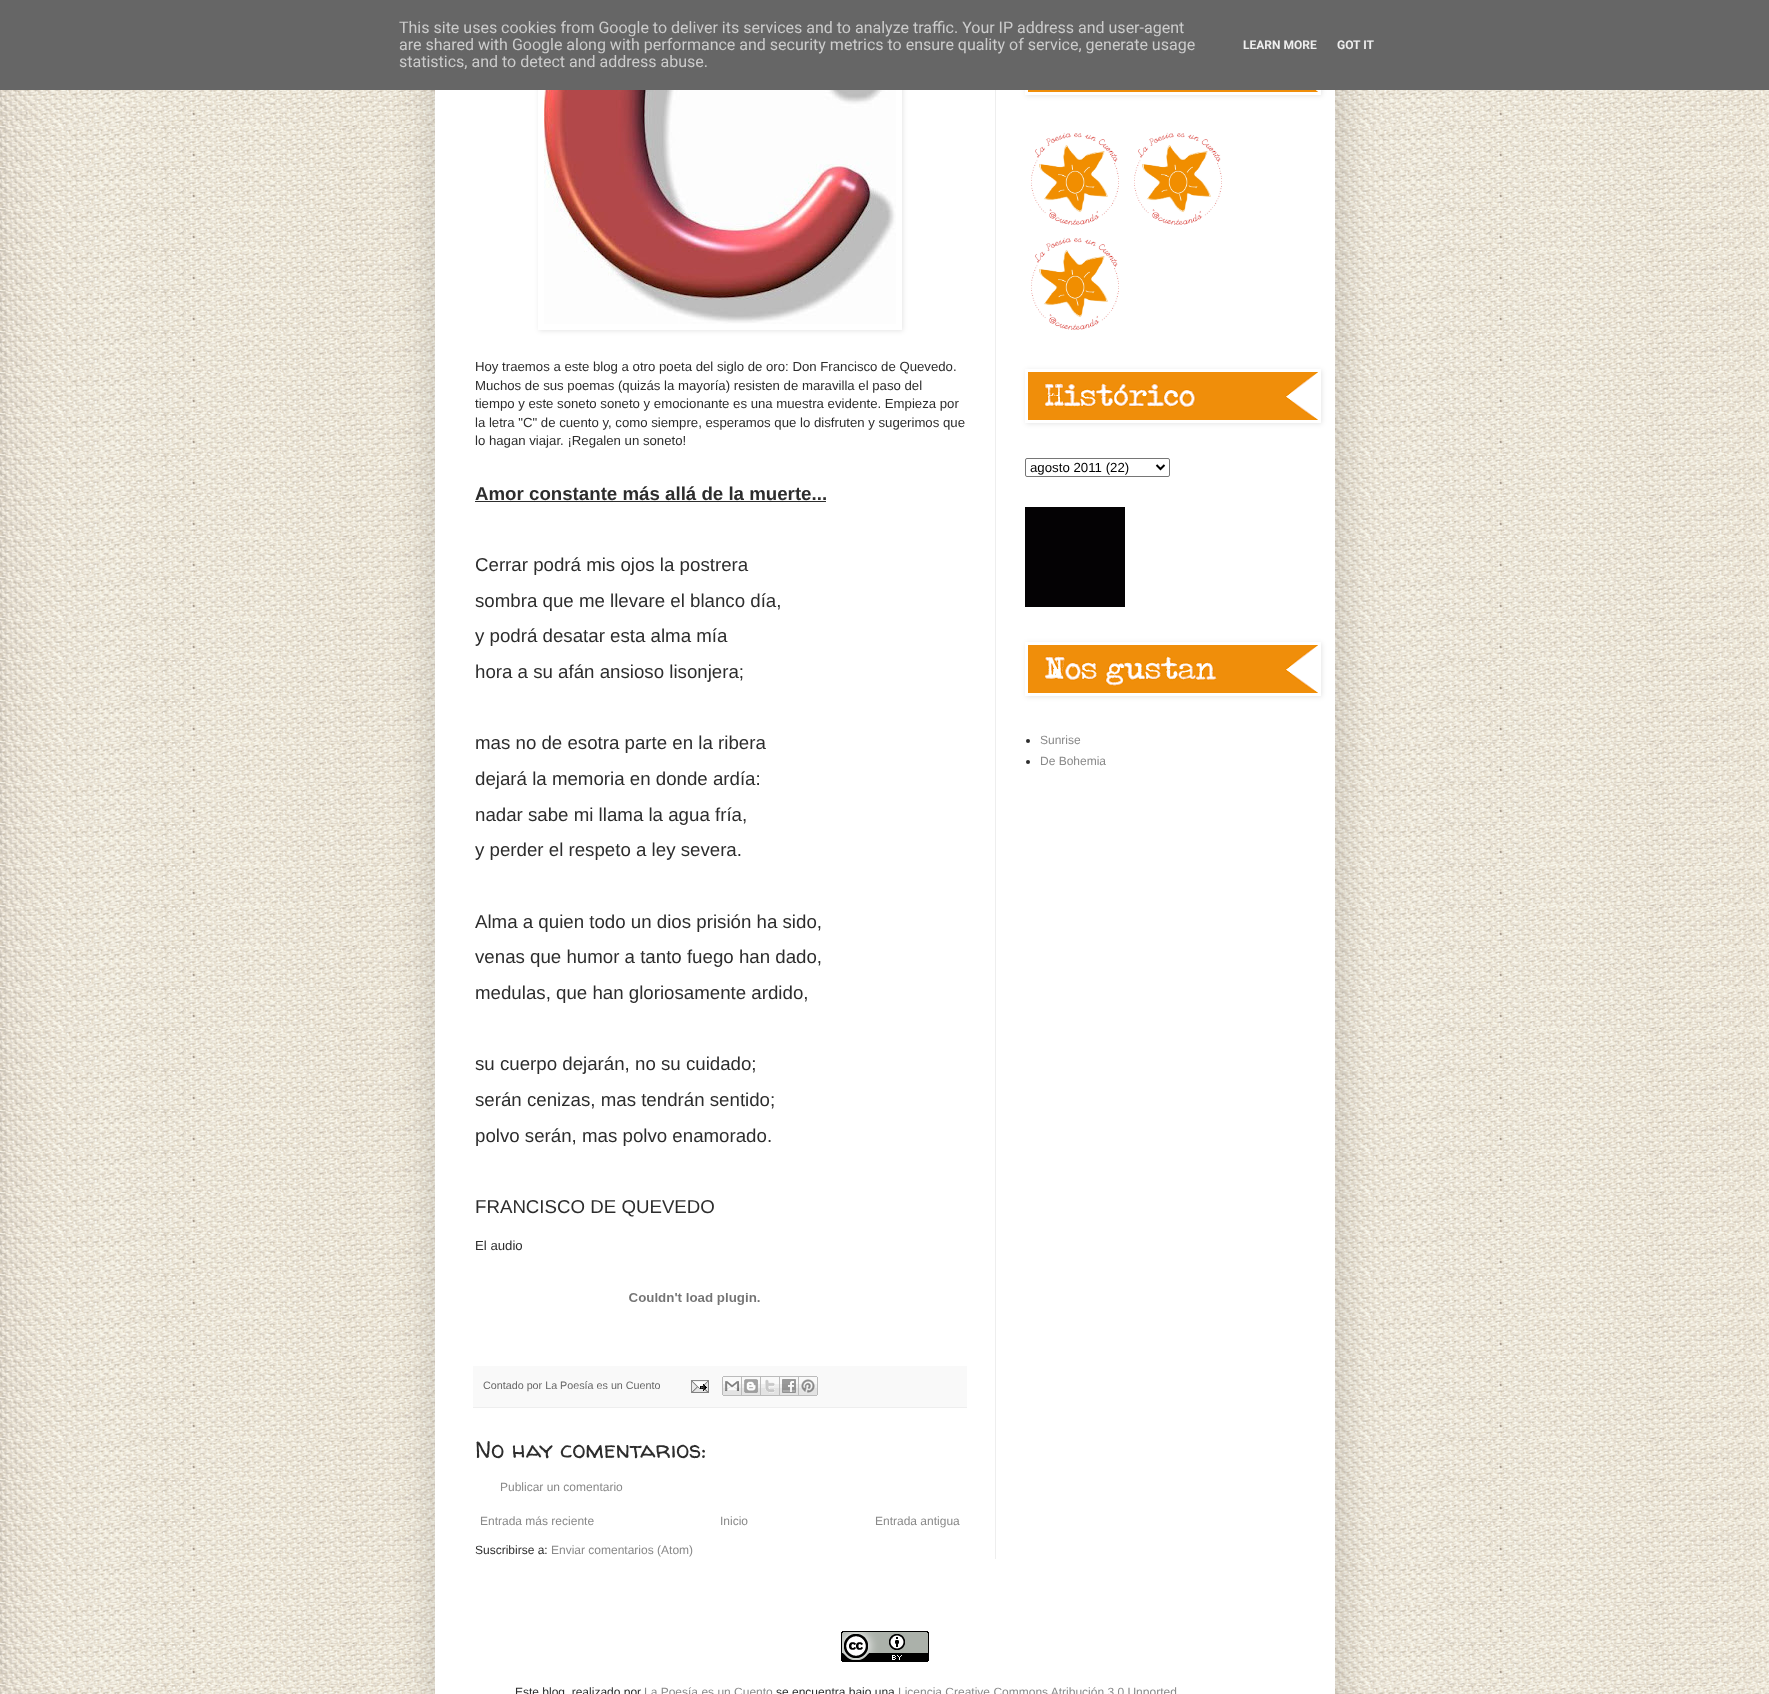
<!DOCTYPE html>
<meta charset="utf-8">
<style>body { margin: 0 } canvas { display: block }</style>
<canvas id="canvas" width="1769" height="1694"></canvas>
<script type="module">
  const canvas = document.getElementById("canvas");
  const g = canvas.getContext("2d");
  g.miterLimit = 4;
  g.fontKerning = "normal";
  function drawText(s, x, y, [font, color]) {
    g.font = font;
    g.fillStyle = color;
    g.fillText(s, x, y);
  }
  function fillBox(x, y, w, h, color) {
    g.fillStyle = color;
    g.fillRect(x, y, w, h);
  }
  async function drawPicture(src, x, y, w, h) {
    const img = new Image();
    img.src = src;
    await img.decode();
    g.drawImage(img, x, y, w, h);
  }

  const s1 = ["16px Roboto", "#CCCCCC"];
  const s2 = ["bold 12px Roboto", "#EEEEEE"];
  const s3 = ["13.2px Liberation Sans", "#2D2D2D"];
  const s4 = ["bold 18.7px Liberation Sans", "#2D2D2D"];
  const s5 = ["18.7px Liberation Sans", "#2D2D2D"];
  const s6 = ["10.75px Liberation Sans", "#676767"];
  const s7 = ["24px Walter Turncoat", "#2D2D2D"];
  const s8 = ["12px Liberation Sans", "#898989"];
  const s9 = ["12px Liberation Sans", "#2D2D2D"];
  const s10 = ["13.25px Liberation Sans", "#000000"];

  fillBox(0, 0, 1769, 1694, "#FFFFFF");
  await drawPicture("pic1.png", 0, 90, 1769, 1604);
  g.fillStyle = "rgba(0, 0, 0, 0.15)";
  g.filter = "blur(20px)";
  g.beginPath();
  g.rect(435, -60, 900, 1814);
  g.fill();
  g.filter = "none";
  fillBox(435, 90, 900, 1604, "#FFFFFF");
  g.save();
  g.beginPath();
  g.moveTo(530, 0);
  g.lineTo(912, 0);
  g.lineTo(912, 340);
  g.lineTo(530, 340);
  g.closePath();
  g.moveTo(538, -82);
  g.lineTo(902, -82);
  g.lineTo(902, 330);
  g.lineTo(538, 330);
  g.closePath();
  g.clip("evenodd");
  g.fillStyle = "rgba(0, 0, 0, 0.1)";
  g.filter = "blur(2.5px)";
  g.beginPath();
  g.rect(539, -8, 364, 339);
  g.fill();
  g.filter = "none";
  g.restore();
  g.save();
  g.beginPath();
  g.moveTo(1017, 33);
  g.lineTo(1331, 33);
  g.lineTo(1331, 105);
  g.lineTo(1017, 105);
  g.closePath();
  g.moveTo(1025, 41);
  g.lineTo(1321, 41);
  g.lineTo(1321, 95);
  g.lineTo(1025, 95);
  g.closePath();
  g.clip("evenodd");
  g.fillStyle = "rgba(0, 0, 0, 0.1)";
  g.filter = "blur(2.5px)";
  g.beginPath();
  g.rect(1026, 42, 296, 54);
  g.fill();
  g.filter = "none";
  g.restore();
  fillBox(0, 0, 1769, 90, "#666666");
  drawText("This site uses cookies from Google to deliver its services and to analyze traffic. Your IP address and user-agent", 399, 33, s1);
  drawText("are shared with Google along with performance and security metrics to ensure quality of service, generate usage", 399, 50, s1);
  drawText("statistics, and to detect and address abuse.", 399, 67, s1);
  drawText("LEARN MORE", 1243, 49, s2);
  drawText("GOT IT", 1337, 49, s2);
  fillBox(995, 90, 1, 1469, "#EEEEEE");
  await drawPicture("pic2.png", 544, 90, 352, 234);
  drawText("Hoy traemos a este blog a otro poeta del siglo de oro: Don Francisco de Quevedo.", 475, 371, s3);
  drawText("Muchos de sus poemas (quizás la mayoría) resisten de maravilla el paso del", 475, 390, s3);
  drawText("tiempo y este soneto soneto y emocionante es una muestra evidente. Empieza por", 475, 408, s3);
  drawText("la letra \"C\" de cuento y, como siempre, esperamos que lo disfruten y sugerimos que", 475, 427, s3);
  drawText("lo hagan viajar. ¡Regalen un soneto!", 475, 445, s3);
  drawText("Amor constante más allá de la muerte...", 475, 500, s4);
  fillBox(475, 501, 351, 1, "#2D2D2D");
  drawText("Cerrar podrá mis ojos la postrera", 475, 571, s5);
  drawText("sombra que me llevare el blanco día,", 475, 607, s5);
  drawText("y podrá desatar esta alma mía", 475, 642, s5);
  drawText("hora a su afán ansioso lisonjera;", 475, 678, s5);
  drawText("mas no de esotra parte en la ribera", 475, 749, s5);
  drawText("dejará la memoria en donde ardía:", 475, 785, s5);
  drawText("nadar sabe mi llama la agua fría,", 475, 821, s5);
  drawText("y perder el respeto a ley severa.", 475, 856, s5);
  drawText("Alma a quien todo un dios prisión ha sido,", 475, 928, s5);
  drawText("venas que humor a tanto fuego han dado,", 475, 963, s5);
  drawText("medulas, que han gloriosamente ardido,", 475, 999, s5);
  drawText("su cuerpo dejarán, no su cuidado;", 475, 1070, s5);
  drawText("serán cenizas, mas tendrán sentido;", 475, 1106, s5);
  drawText("polvo serán, mas polvo enamorado.", 475, 1142, s5);
  drawText("FRANCISCO DE QUEVEDO", 475, 1213, s5);
  drawText("El audio", 475, 1250, s3);
  await drawPicture("pic3.png", 629, 1293, 131, 12);
  fillBox(473, 1366, 494, 41, "#F9F9F9");
  fillBox(473, 1407, 494, 1, "#EEEEEE");
  drawText("Contado por La Poesía es un Cuento", 483, 1389, s6);
  await drawPicture("pic4.png", 691, 1380, 18, 13);
  await drawPicture("pic5.png", 722, 1376, 20, 20);
  await drawPicture("pic6.png", 742, 1376, 19, 20);
  await drawPicture("pic7.png", 761, 1376, 19, 20);
  await drawPicture("pic8.png", 780, 1376, 19, 20);
  await drawPicture("pic9.png", 799, 1376, 19, 20);
  drawText("No hay comentarios:", 475, 1458, s7);
  drawText("Publicar un comentario", 500, 1491, s8);
  drawText("Entrada más reciente", 480, 1525, s8);
  drawText("Inicio", 720, 1525, s8);
  drawText("Entrada antigua", 875, 1525, s8);
  drawText("Suscribirse a:", 475, 1554, s9);
  drawText("Enviar comentarios (Atom)", 551, 1554, s8);
  await drawPicture("pic10.png", 1028, 90, 290, 2);
  await drawPicture("pic11.png", 1031, 132, 88, 93);
  await drawPicture("pic11.png", 1134, 132, 88, 93);
  await drawPicture("pic11.png", 1031, 237, 88, 93);
  g.save();
  g.beginPath();
  g.moveTo(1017, 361);
  g.lineTo(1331, 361);
  g.lineTo(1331, 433);
  g.lineTo(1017, 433);
  g.closePath();
  g.moveTo(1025, 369);
  g.lineTo(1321, 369);
  g.lineTo(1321, 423);
  g.lineTo(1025, 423);
  g.closePath();
  g.clip("evenodd");
  g.fillStyle = "rgba(0, 0, 0, 0.1)";
  g.filter = "blur(2.5px)";
  g.beginPath();
  g.rect(1026, 370, 296, 54);
  g.fill();
  g.filter = "none";
  g.restore();
  await drawPicture("pic12.png", 1028, 372, 290, 48);
  g.beginPath();
  g.roundRect(1025.5, 458.5, 144, 18, 1.5);
  g.strokeStyle = "#767676";
  g.stroke();
  g.beginPath();
  g.moveTo(1156.5, 465);
  g.lineTo(1160.5, 469);
  g.lineTo(1164.5, 465);
  g.strokeStyle = "#000000";
  g.lineWidth = 2;
  g.stroke();
  drawText("agosto 2011 (22)", 1030, 472, s10);
  fillBox(1025, 507, 100, 100, "#040204");
  g.save();
  g.beginPath();
  g.moveTo(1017, 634);
  g.lineTo(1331, 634);
  g.lineTo(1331, 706);
  g.lineTo(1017, 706);
  g.closePath();
  g.moveTo(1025, 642);
  g.lineTo(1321, 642);
  g.lineTo(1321, 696);
  g.lineTo(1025, 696);
  g.closePath();
  g.clip("evenodd");
  g.fillStyle = "rgba(0, 0, 0, 0.1)";
  g.filter = "blur(2.5px)";
  g.beginPath();
  g.rect(1026, 643, 296, 54);
  g.fill();
  g.filter = "none";
  g.restore();
  await drawPicture("pic13.png", 1028, 645, 290, 48);
  g.fillStyle = "#2D2D2D";
  g.beginPath();
  g.arc(1028, 741, 2, 0, Math.PI * 2);
  g.fill();
  drawText("Sunrise", 1040, 744, s8);
  g.fillStyle = "#2D2D2D";
  g.beginPath();
  g.arc(1028, 762, 2, 0, Math.PI * 2);
  g.fill();
  drawText("De Bohemia", 1040, 765, s8);
  await drawPicture("pic14.png", 841, 1631, 88, 31);
  drawText("Este blog, realizado por", 515, 1696, s9);
  drawText("La Poesía es un Cuento", 644, 1696, s8);
  drawText("se encuentra bajo una", 776, 1696, s9);
  drawText("Licencia Creative Commons Atribución 3.0 Unported", 898, 1696, s8);
</script>
